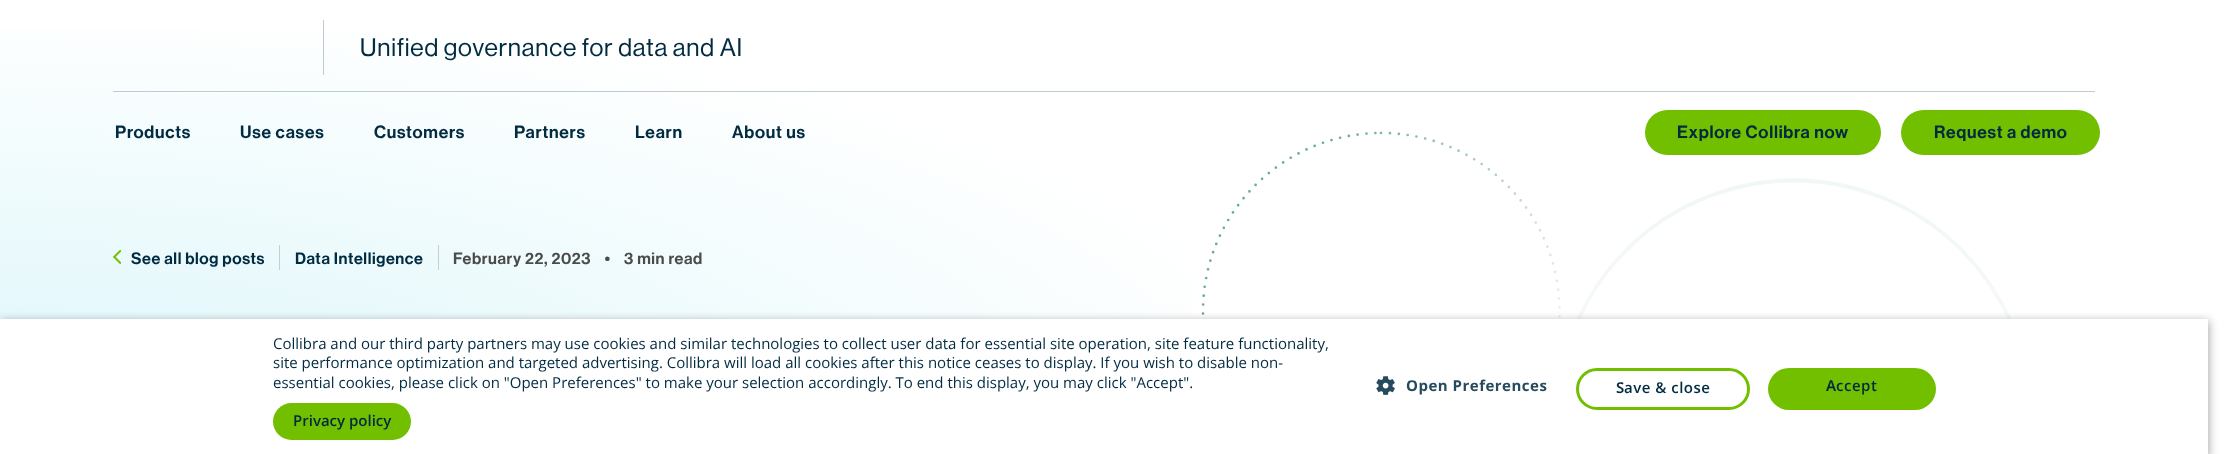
<!DOCTYPE html>
<meta charset="utf-8">
<style>body { margin: 0 } canvas { display: block }</style>
<canvas id="canvas" width="2226" height="454"></canvas>
<script type="module">
  const canvas = document.getElementById("canvas");
  const g = canvas.getContext("2d");
  g.miterLimit = 4;
  g.fontKerning = "normal";
  function drawText(s, x, y, [font, color]) {
    g.font = font;
    g.fillStyle = color;
    g.fillText(s, x, y);
  }
  function fillBox(x, y, w, h, color) {
    g.fillStyle = color;
    g.fillRect(x, y, w, h);
  }
  function fillRounded(x, y, w, h, r, color) {
    g.fillStyle = color;
    g.beginPath();
    g.roundRect(x, y, w, h, r);
    g.fill();
  }
  async function drawPicture(src, x, y, w, h) {
    const img = new Image();
    img.src = src;
    await img.decode();
    g.drawImage(img, x, y, w, h);
  }
  let gradient;

  const s1 = ["500 25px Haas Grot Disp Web", "#002B40"];
  const s2 = ["600 17.5px Haas Grot Disp Web", "#002B40"];
  const s3 = ["600 16.25px Haas Grot Disp Web", "#002B40"];
  const s4 = ["600 16.25px Haas Grot Disp Web", "#4B4B4B"];
  const s5 = ["15px Open Sans", "#002B40"];
  const s6 = ["600 15px Open Sans", "#002B40"];
  const s7 = ["bold 15px Open Sans", "#264B5D"];
  const s8 = ["600 15px Noto Sans", "#002B40"];

  fillBox(0, 0, 2226, 454, "#FFFFFF");
  gradient = g.createRadialGradient(0, 1325, 0, 0, 1325, 1325);
  gradient.addColorStop(0, "#DCF6FA");
  gradient.addColorStop(1, "#FFFFFF");
  g.fillStyle = gradient;
  g.beginPath();
  g.rect(0, 30, 1192, 289);
  g.save();
  g.clip();
  g.scale(1, 416 / 1325);
  g.fillRect(0, 0, 2226, 1447);
  g.restore();
  fillBox(323, 20, 1, 55, "#BDCCD4");
  g.letterSpacing = "0.75px";
  drawText("Unified governance for data and AI", 360, 56, s1);
  fillBox(113, 91, 1982, 1, "#BDCCD4");
  drawText("Products", 115, 138, s2);
  drawText("Use cases", 240, 138, s2);
  drawText("Customers", 374, 138, s2);
  drawText("Partners", 514, 138, s2);
  drawText("Learn", 635, 138, s2);
  drawText("About us", 732, 138, s2);
  fillRounded(1645, 110, 236, 45, 22.5, "#72BF00");
  drawText("Explore Collibra now", 1677, 138, s2);
  fillRounded(1901, 110, 199, 45, 22.5, "#72BF00");
  drawText("Request a demo", 1934, 138, s2);
  g.beginPath();
  g.arc(1794, 417, 236.5, 0, Math.PI * 2);
  gradient = g.createLinearGradient(1794, 179, 1794, 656);
  gradient.addColorStop(0, "rgba(182, 216, 209, 0.2)");
  gradient.addColorStop(1, "rgba(182, 216, 209, 0)");
  g.strokeStyle = gradient;
  g.lineWidth = 3.8;
  g.stroke();
  g.beginPath();
  g.moveTo(1381, 133);
  g.bezierCurveTo(1479.5, 133, 1559.5, 213, 1559.5, 311.5);
  g.bezierCurveTo(1559.5, 409.5, 1479.5, 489.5, 1381, 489.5);
  g.bezierCurveTo(1283, 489.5, 1203, 409.5, 1203, 311.5);
  g.bezierCurveTo(1203, 213, 1283, 133, 1381, 133);
  g.closePath();
  gradient = g.createLinearGradient(1559, 418, 1271, 245);
  gradient.addColorStop(0, "rgba(3, 117, 95, 0)");
  gradient.addColorStop(1, "rgba(3, 117, 95, 0.6)");
  g.strokeStyle = gradient;
  g.lineWidth = 2.7;
  g.lineCap = "round";
  g.setLineDash([0, 8.91, 0, 0, 0, 0]);
  g.stroke();
  await drawPicture("pic1.png", 112, 250, 9, 14);
  g.letterSpacing = "0.6px";
  drawText("See all blog posts", 131, 264, s3);
  fillBox(279, 245, 1, 25, "#CCCCCC");
  drawText("Data Intelligence", 295, 264, s3);
  fillBox(438, 245, 1, 25, "#CCCCCC");
  drawText("February 22, 2023    •    3 min read", 453, 264, s4);
  g.fillStyle = "rgba(0, 0, 0, 0.35)";
  g.filter = "blur(5px)";
  g.beginPath();
  g.rect(1, 321, 2208, 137);
  g.fill();
  g.filter = "none";
  fillBox(0, 319, 2208, 135, "#FFFFFF");
  g.letterSpacing = "0px";
  drawText("Collibra and our third party partners may use cookies and similar technologies to collect user data for essential site operation, site feature functionality,", 273, 349, s5);
  drawText("site performance optimization and targeted advertising. Collibra will load all cookies after this notice ceases to display. If you wish to disable non-", 273, 368, s5);
  drawText("essential cookies, please click on \"Open Preferences\" to make your selection accordingly. To end this display, you may click \"Accept\".", 273, 388, s5);
  fillRounded(273, 403, 138, 37, 18.5, "#72BF00");
  drawText("Privacy policy", 293, 426, s6);
  await drawPicture("pic2.png", 1376, 376, 19, 19);
  g.letterSpacing = "0.5px";
  drawText("Open Preferences", 1406, 391, s7);
  g.beginPath();
  g.roundRect(1577.5, 369.5, 171, 39, 19.5);
  g.strokeStyle = "#72BF00";
  g.lineWidth = 3;
  g.setLineDash([]);
  g.stroke();
  drawText("S", 1616, 393, s8);
  drawText("ave & close", 1624, 393, s6);
  fillRounded(1768, 368, 168, 42, 21, "#72BF00");
  drawText("A", 1826, 391, s8);
  drawText("ccept", 1836, 391, s6);
</script>
